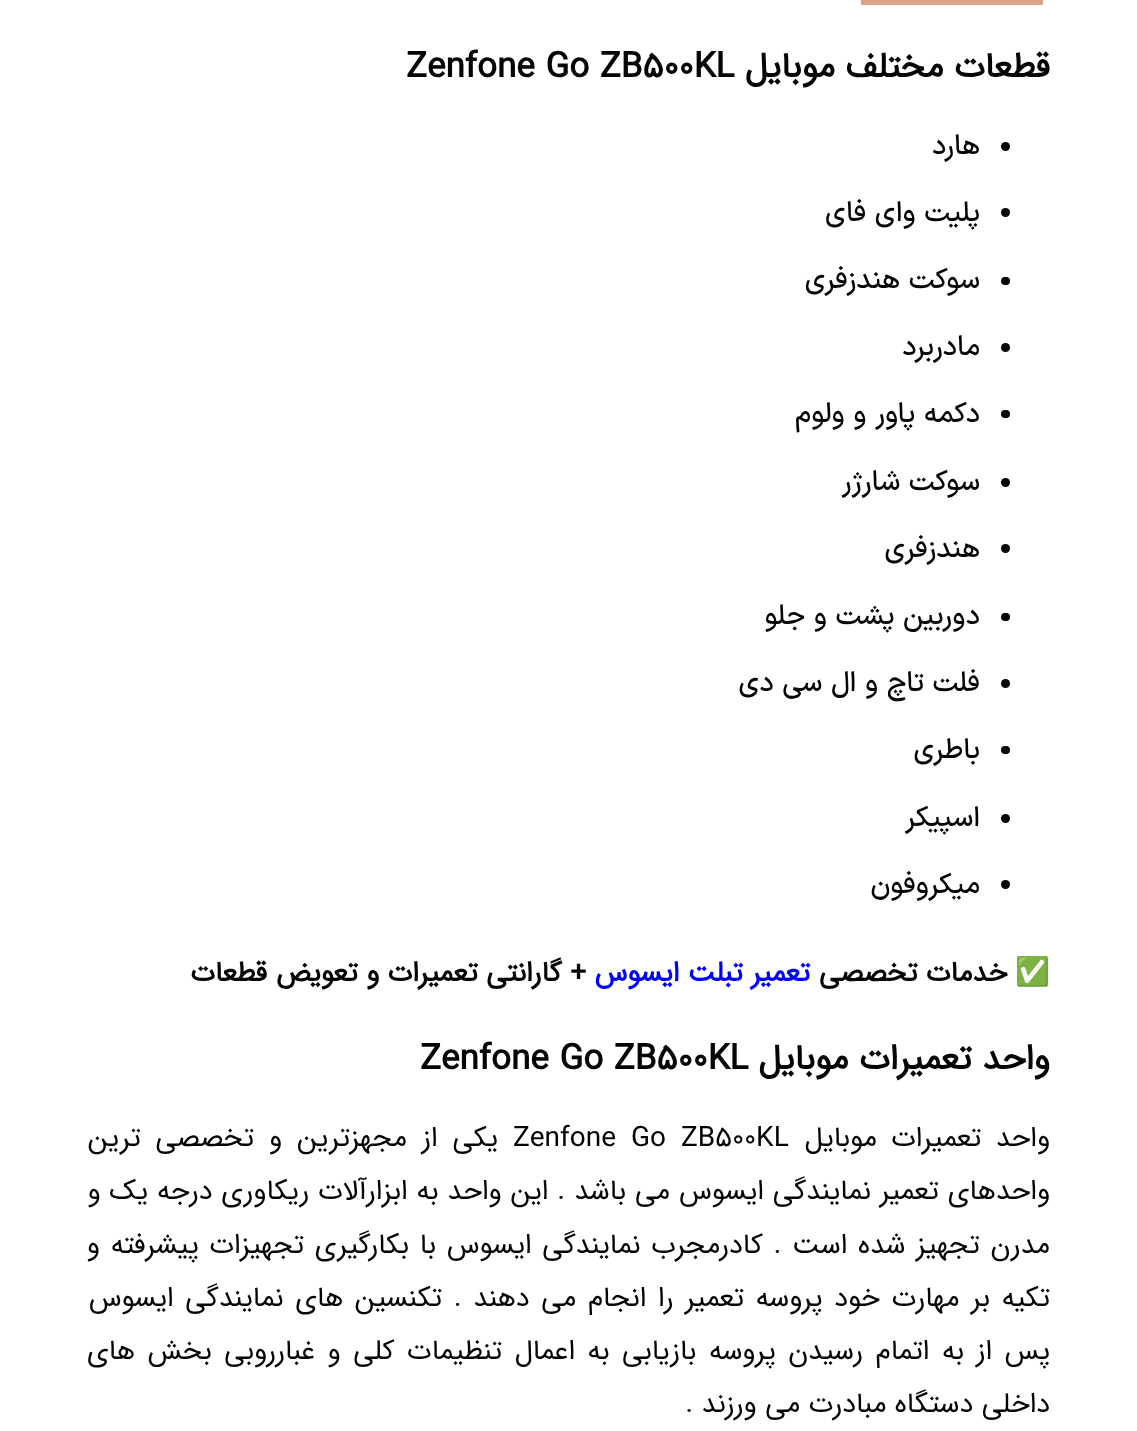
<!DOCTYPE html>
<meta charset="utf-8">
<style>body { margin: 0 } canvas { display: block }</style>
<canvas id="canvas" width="1137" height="1431"></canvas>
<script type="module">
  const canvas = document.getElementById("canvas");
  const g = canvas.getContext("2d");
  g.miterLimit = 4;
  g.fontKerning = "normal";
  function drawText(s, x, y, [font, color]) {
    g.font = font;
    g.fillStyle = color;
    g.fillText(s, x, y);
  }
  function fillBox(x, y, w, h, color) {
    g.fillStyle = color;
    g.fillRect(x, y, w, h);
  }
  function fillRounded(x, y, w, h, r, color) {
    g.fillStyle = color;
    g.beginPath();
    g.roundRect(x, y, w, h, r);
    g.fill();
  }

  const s1 = ["bold 35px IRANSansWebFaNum", "#050505"];
  const s2 = ["500 28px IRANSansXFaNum", "#050505"];
  const s3 = ["bold 28px Noto Color Emoji", "#050505"];
  const s4 = ["bold 28px IRANSansWebFaNum", "#050505"];
  const s5 = ["bold 28px IRANSansWebFaNum", "#0000FF"];
  const s6 = ["28px IRANSansWebFaNum", "#050505"];

  fillBox(0, 0, 1137, 1431, "#FFFFFF");
  fillBox(861, 0, 182, 5, "#DAA48A");
  g.direction = "rtl";
  drawText("قطعات مختلف موبايل", 1050, 77, s1);
  g.direction = "ltr";
  drawText("Zenfone Go ZB500KL", 406, 77, s1);
  g.beginPath();
  g.arc(1005.5, 146.5, 4.5, 0, Math.PI * 2);
  g.fill();
  g.direction = "rtl";
  drawText("هارد", 980, 154, s2);
  g.beginPath();
  g.arc(1005.5, 212.5, 4.5, 0, Math.PI * 2);
  g.fill();
  drawText("پلیت وای فای", 980, 221, s2);
  fillRounded(1001, 277, 9, 8, 4, "#050505");
  drawText("سوکت هندزفری", 980, 288, s2);
  g.beginPath();
  g.arc(1005.5, 347.5, 4.5, 0, Math.PI * 2);
  g.fill();
  drawText("مادربرد", 980, 355, s2);
  fillRounded(1001, 410, 9, 8, 4, "#050505");
  drawText("دکمه پاور و ولوم", 980, 422, s2);
  g.beginPath();
  g.arc(1005.5, 482.5, 4.5, 0, Math.PI * 2);
  g.fill();
  drawText("سوکت شارژر", 980, 490, s2);
  g.beginPath();
  g.arc(1005.5, 548.5, 4.5, 0, Math.PI * 2);
  g.fill();
  drawText("هندزفری", 980, 557, s2);
  fillRounded(1001, 613, 9, 8, 4, "#050505");
  drawText("دوربین پشت و جلو", 980, 624, s2);
  g.beginPath();
  g.arc(1005.5, 683.5, 4.5, 0, Math.PI * 2);
  g.fill();
  drawText("فلت تاچ و ال سی دی", 980, 691, s2);
  fillRounded(1001, 746, 9, 8, 4, "#050505");
  drawText("باطری", 980, 758, s2);
  g.beginPath();
  g.arc(1005.5, 818.5, 4.5, 0, Math.PI * 2);
  g.fill();
  drawText("اسپیکر", 980, 826, s2);
  g.beginPath();
  g.arc(1005.5, 884.5, 4.5, 0, Math.PI * 2);
  g.fill();
  drawText("میکروفون", 980, 893, s2);
  drawText("✅", 1050, 981, s3);
  drawText("خدمات تخصصی", 1007, 981, s4);
  drawText("تعمیر تبلت ایسوس", 810, 981, s5);
  drawText("+ گارانتی تعمیرات و تعویض قطعات", 586, 981, s4);
  drawText("واحد تعمیرات موبايل", 1050, 1069, s1);
  g.direction = "ltr";
  drawText("Zenfone Go ZB500KL", 420, 1069, s1);
  g.wordSpacing = "6px";
  g.direction = "rtl";
  drawText("واحد تعمیرات موبايل", 1050, 1146, s6);
  g.wordSpacing = "6.5px";
  g.direction = "ltr";
  drawText("Zenfone Go ZB500KL", 513, 1146, s6);
  g.direction = "rtl";
  drawText("یکی از مجهزترین و تخصصی ترین", 498, 1146, s6);
  g.wordSpacing = "0.5px";
  drawText("واحدهای تعمیر نمایندگی ایسوس می باشد . این واحد به ابزارآلات ریکاوری درجه یک و", 1050, 1199, s6);
  g.wordSpacing = "2.25px";
  drawText("مدرن تجهیز شده است . کادرمجرب نمایندگی ایسوس با بکارگیری تجهیزات پیشرفته و", 1050, 1253, s6);
  g.wordSpacing = "3.25px";
  drawText("تکیه بر مهارت خود پروسه تعمیر را انجام می دهند . تکنسین های نمایندگی ایسوس", 1050, 1306, s6);
  g.wordSpacing = "4.1px";
  drawText("پس از به اتمام رسیدن پروسه بازیابی به اعمال تنظیمات کلی و غبارروبی بخش های", 1050, 1359, s6);
  g.wordSpacing = "0px";
  drawText("داخلی دستگاه مبادرت می ورزند .", 1050, 1412, s6);
</script>
